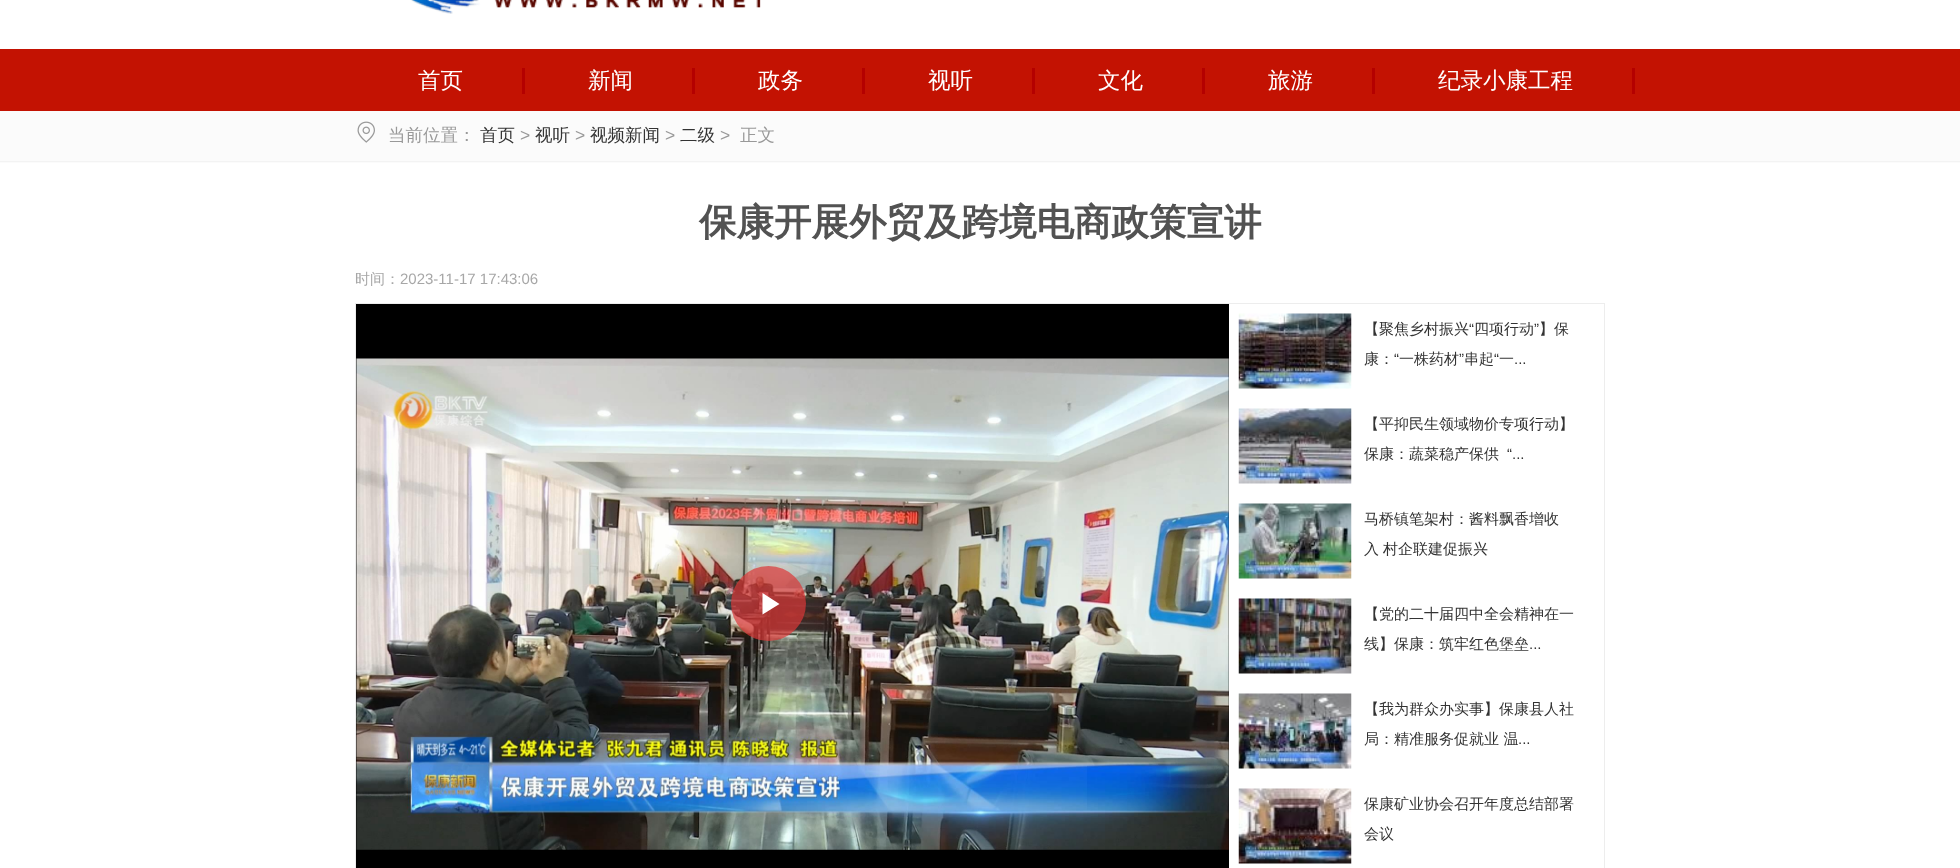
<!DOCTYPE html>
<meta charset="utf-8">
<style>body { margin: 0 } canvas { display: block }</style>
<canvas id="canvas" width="1960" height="868"></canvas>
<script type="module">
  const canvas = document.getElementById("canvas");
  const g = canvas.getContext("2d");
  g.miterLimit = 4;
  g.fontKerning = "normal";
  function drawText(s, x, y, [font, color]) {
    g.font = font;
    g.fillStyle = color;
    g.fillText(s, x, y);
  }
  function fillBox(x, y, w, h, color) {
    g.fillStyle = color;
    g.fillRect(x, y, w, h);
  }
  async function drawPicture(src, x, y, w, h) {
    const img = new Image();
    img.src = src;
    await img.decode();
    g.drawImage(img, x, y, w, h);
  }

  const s1 = ["500 22.5px WenQuanYi Zen Hei", "#FFFFFF"];
  const s2 = ["500 17.5px WenQuanYi Zen Hei", "#999999"];
  const s3 = ["500 17.5px WenQuanYi Zen Hei", "#333333"];
  const s4 = ["17.5px Liberation Sans", "#999999"];
  const s5 = ["bold 37.5px WenQuanYi Zen Hei", "#525252"];
  const s6 = ["500 15px WenQuanYi Zen Hei", "#A7A7A7"];
  const s7 = ["15px Liberation Sans", "#A7A7A7"];
  const s8 = ["500 15px WenQuanYi Zen Hei", "#333333"];
  const s9 = ["15px Liberation Sans", "#333333"];

  fillBox(0, 0, 1960, 868, "#FFFFFF");
  await drawPicture("pic1.png", 411, 0, 350, 14);
  fillBox(0, 49, 1960, 62, "#C31202");
  fillBox(522, 68, 3, 26, "#B40000");
  drawText("首页", 418, 88, s1);
  fillBox(692, 68, 3, 26, "#B40000");
  drawText("新闻", 588, 88, s1);
  fillBox(862, 68, 3, 26, "#B40000");
  drawText("政务", 758, 88, s1);
  fillBox(1032, 68, 3, 26, "#B40000");
  drawText("视听", 928, 88, s1);
  fillBox(1202, 68, 3, 26, "#B40000");
  drawText("文化", 1098, 88, s1);
  fillBox(1372, 68, 3, 26, "#B40000");
  drawText("旅游", 1268, 88, s1);
  fillBox(1632, 68, 3, 26, "#B40000");
  drawText("纪录小康工程", 1438, 88, s1);
  fillBox(0, 111, 1960, 52, "#FBFBFB");
  fillBox(0, 161, 1960, 1, "#F3F3F3");
  await drawPicture("pic2.png", 357, 121, 18, 22);
  drawText("当前位置：", 388, 141, s2);
  drawText("首页", 480, 141, s3);
  drawText(">", 520, 141, s4);
  drawText("视听", 535, 141, s3);
  drawText(">", 575, 141, s4);
  drawText("视频新闻", 590, 141, s3);
  drawText(">", 665, 141, s4);
  drawText("二级", 680, 141, s3);
  drawText(">", 720, 141, s4);
  drawText("正文", 740, 141, s2);
  drawText("保康开展外贸及跨境电商政策宣讲", 699, 235, s5);
  drawText("时间：", 355, 284, s6);
  drawText("2023-11-17 17:43:06", 400, 284, s7);
  g.strokeStyle = "#EDEDED";
  g.strokeRect(355.5, 303.5, 1249, 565);
  fillBox(356, 304, 873, 564, "#000000");
  await drawPicture("pic3.png", 356, 358, 873, 492);
  g.fillStyle = "rgba(219, 55, 55, 0.7)";
  g.beginPath();
  g.arc(768.5, 603.5, 37.5, 0, Math.PI * 2);
  g.fill();
  g.fillStyle = "#FFFFFF";
  g.beginPath();
  g.moveTo(762.5, 593);
  g.lineTo(762.5, 614.5);
  g.lineTo(779.5, 604);
  g.closePath();
  g.fill();
  await drawPicture("pic4.png", 1238, 313, 114, 76);
  drawText("【聚焦乡村振兴", 1364, 334, s8);
  drawText("“", 1469, 334, s9);
  drawText("四项行动", 1474, 334, s8);
  drawText("”", 1534, 334, s9);
  drawText("】保", 1539, 334, s8);
  drawText("康：", 1364, 364, s8);
  drawText("“", 1394, 364, s9);
  drawText("一株药材", 1399, 364, s8);
  drawText("”", 1459, 364, s9);
  drawText("串起", 1464, 364, s8);
  drawText("“", 1494, 364, s9);
  drawText("一", 1499, 364, s8);
  drawText("...", 1514, 364, s9);
  await drawPicture("pic5.png", 1238, 408, 114, 76);
  drawText("【平抑民生领域物价专项行动】", 1364, 429, s8);
  drawText("保康：蔬菜稳产保供", 1364, 459, s8);
  drawText("“...", 1507, 459, s9);
  await drawPicture("pic6.png", 1238, 503, 114, 76);
  drawText("马桥镇笔架村：酱料飘香增收", 1364, 524, s8);
  drawText("入", 1364, 554, s8);
  drawText("村企联建促振兴", 1383, 554, s8);
  await drawPicture("pic7.png", 1238, 598, 114, 76);
  drawText("【党的二十届四中全会精神在一", 1364, 619, s8);
  drawText("线】保康：筑牢红色堡垒", 1364, 649, s8);
  drawText("...", 1529, 649, s9);
  await drawPicture("pic8.png", 1238, 693, 114, 76);
  drawText("【我为群众办实事】保康县人社", 1364, 714, s8);
  drawText("局：精准服务促就业 温", 1364, 744, s8);
  drawText("...", 1518, 744, s9);
  await drawPicture("pic9.png", 1238, 788, 114, 76);
  drawText("保康矿业协会召开年度总结部署", 1364, 809, s8);
  drawText("会议", 1364, 839, s8);
</script>
